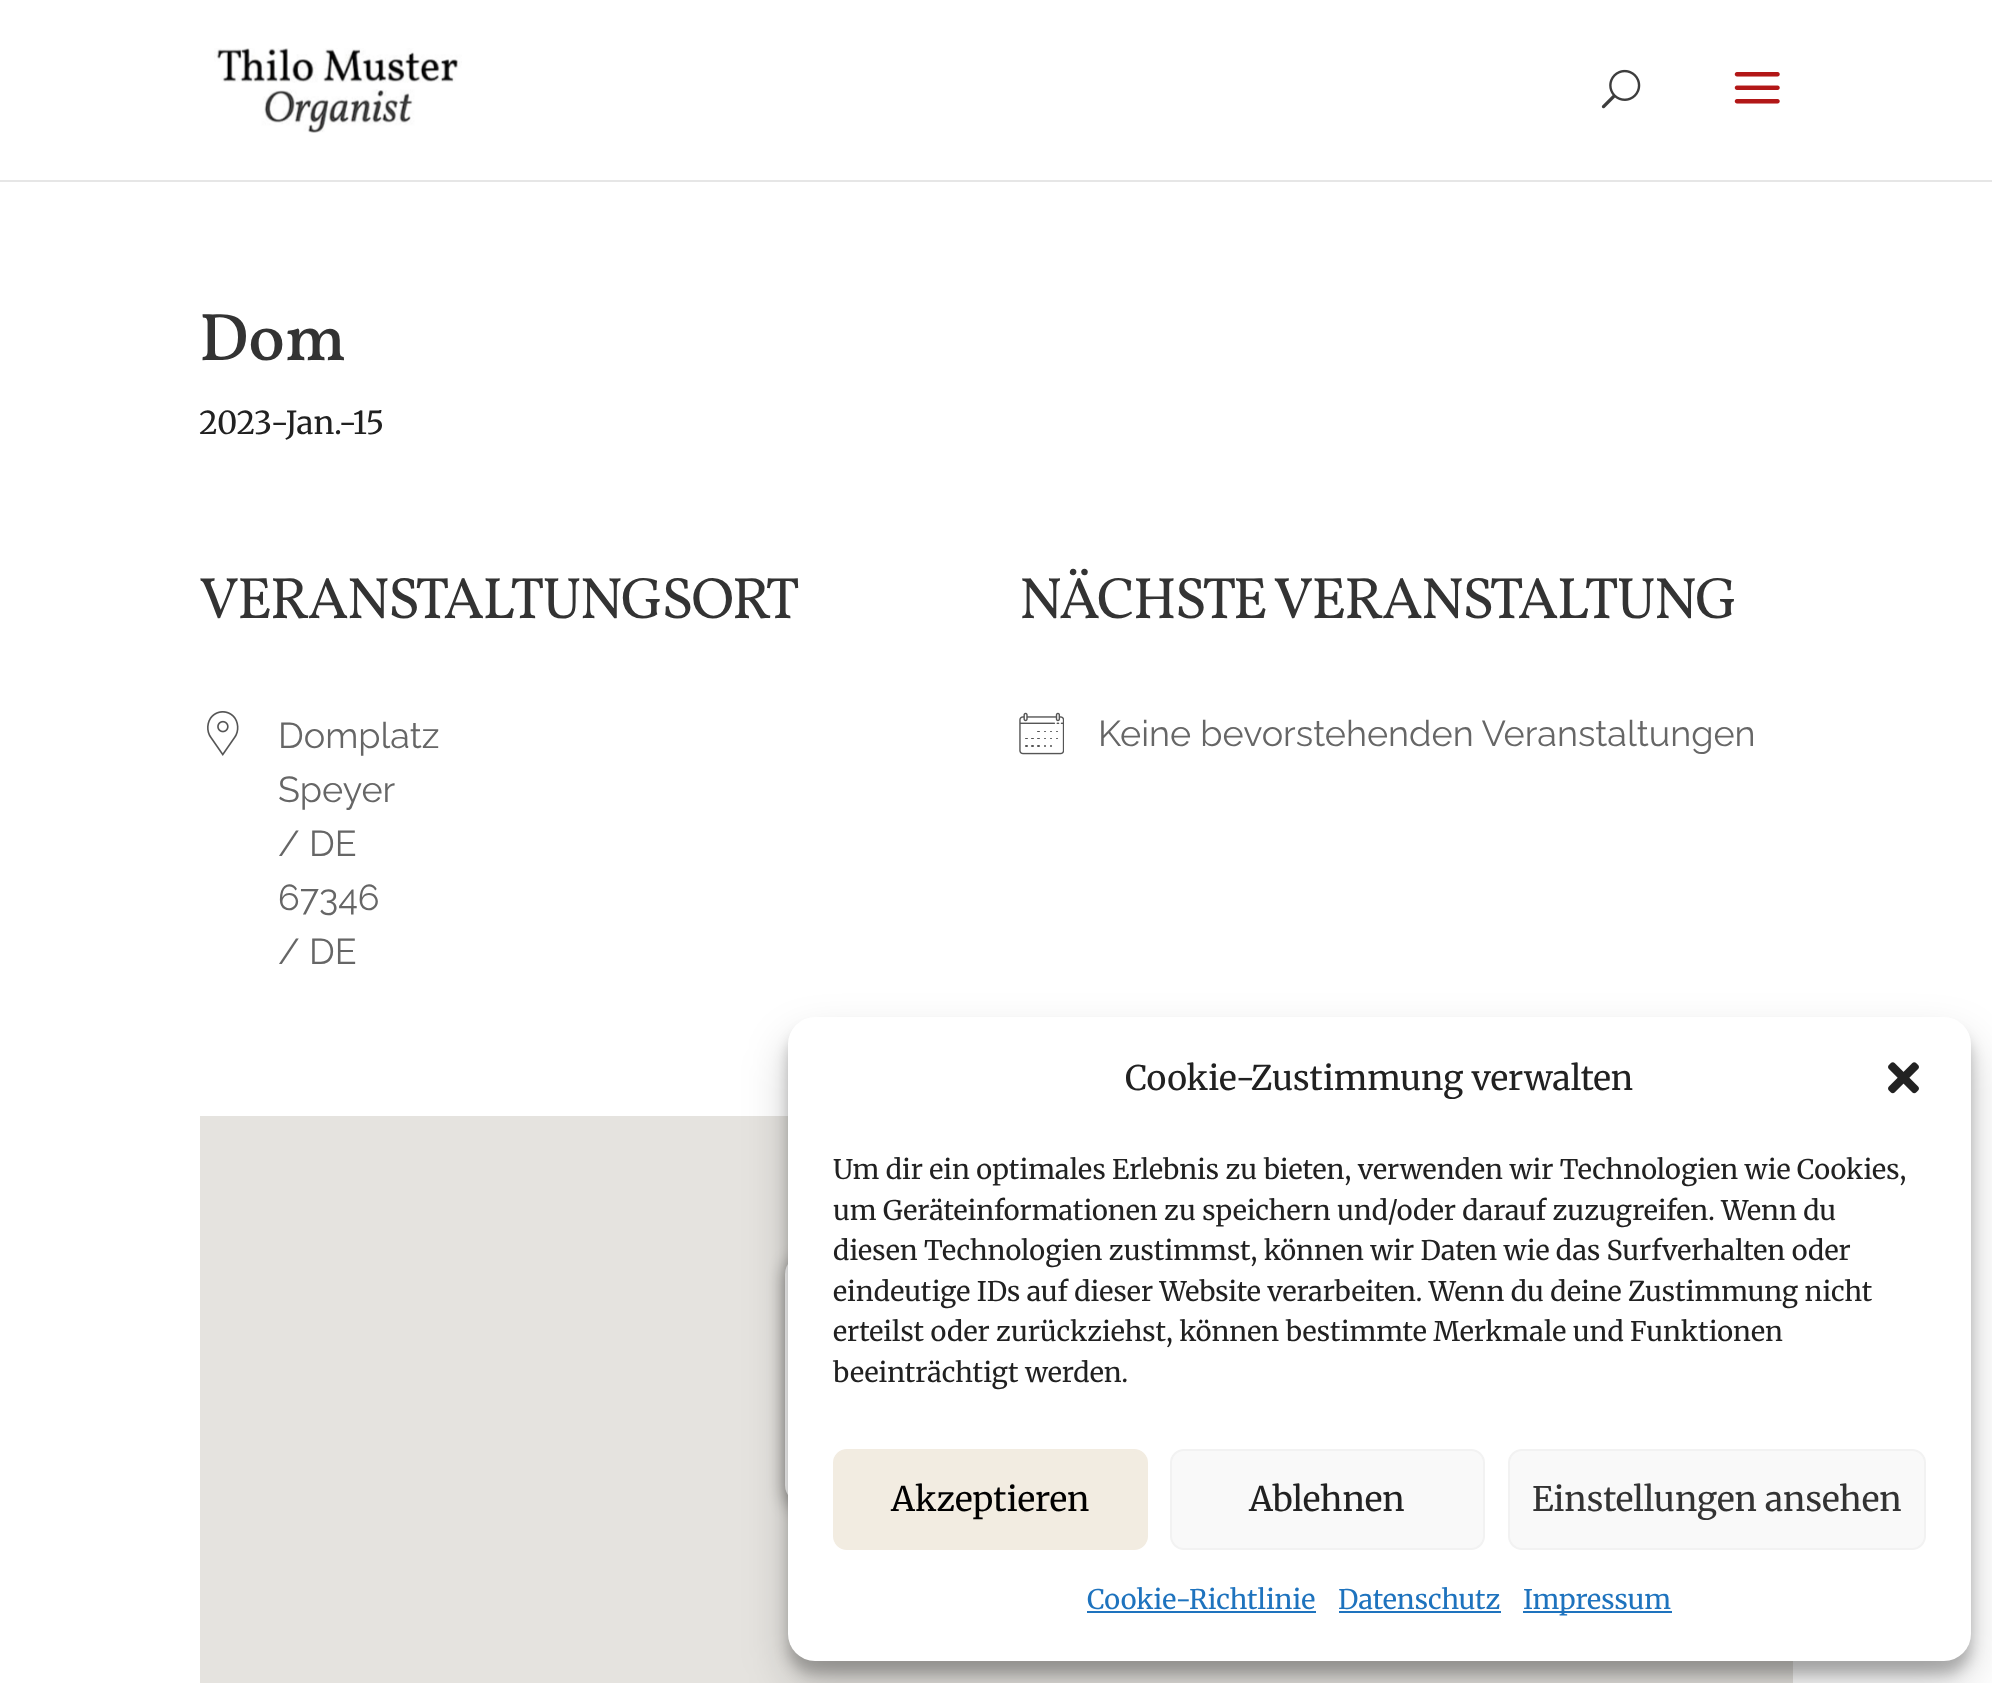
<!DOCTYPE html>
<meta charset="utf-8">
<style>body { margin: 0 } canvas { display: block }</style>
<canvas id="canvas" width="1992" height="1683"></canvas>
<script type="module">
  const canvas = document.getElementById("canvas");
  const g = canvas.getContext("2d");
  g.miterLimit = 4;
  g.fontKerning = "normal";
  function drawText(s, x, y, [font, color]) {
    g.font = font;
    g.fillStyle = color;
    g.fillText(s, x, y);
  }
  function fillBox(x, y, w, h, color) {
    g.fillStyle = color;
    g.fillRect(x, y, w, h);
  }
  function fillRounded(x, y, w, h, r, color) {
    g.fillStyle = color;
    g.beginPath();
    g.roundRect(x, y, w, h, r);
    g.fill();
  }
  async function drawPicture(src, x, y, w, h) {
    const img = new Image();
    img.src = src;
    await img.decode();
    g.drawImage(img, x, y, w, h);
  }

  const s1 = ["500 67.5px Vollkorn", "#333333"];
  const s2 = ["31.5px Merriweather", "#212121"];
  const s3 = ["58.5px Vollkorn", "#333333"];
  const s4 = ["36px Raleway", "#666666"];
  const s5 = ["33.75px Merriweather", "#212121"];
  const s6 = ["27px Merriweather", "#212121"];
  const s7 = ["33.75px Merriweather", "#000000"];
  const s8 = ["33.75px Merriweather", "#333333"];
  const s9 = ["27px Merriweather", "#1E73BE"];

  fillBox(0, 0, 1992, 1683, "#FFFFFF");
  g.fillStyle = "#E6E6E6";
  g.beginPath();
  g.moveTo(0, 180);
  g.lineTo(0, 182);
  g.lineTo(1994, 182);
  g.lineTo(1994, 2);
  g.lineTo(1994, 180);
  g.closePath();
  g.fill();
  await drawPicture("pic1.png", 214, 48, 248, 85);
  await drawPicture("pic2.png", 1601, 69, 40, 40);
  await drawPicture("pic3.png", 1734, 72, 46, 32);
  drawText("Dom", 199, 360, s1);
  drawText("2023-Jan.-15", 199, 434, s2);
  g.letterSpacing = "-2.25px";
  drawText("VERANSTALTUNGSORT", 199, 618, s3);
  await drawPicture("pic4.png", 207, 711, 32, 45);
  g.letterSpacing = "0px";
  drawText("Domplatz", 278, 748, s4);
  drawText("Speyer", 278, 802, s4);
  drawText("/ DE", 278, 856, s4);
  drawText("67346", 278, 910, s4);
  drawText("/ DE", 278, 964, s4);
  g.letterSpacing = "-2.25px";
  drawText("NÄCHSTE VERANSTALTUNG", 1019, 618, s3);
  await drawPicture("pic5.png", 1019, 712, 45, 43);
  g.letterSpacing = "0px";
  drawText("Keine bevorstehenden Veranstaltungen", 1098, 746, s4);
  fillBox(200, 1116, 1593, 567, "#E5E3DF");
  g.fillStyle = "rgba(0, 0, 0, 0.3)";
  g.filter = "blur(8px)";
  g.beginPath();
  g.roundRect(783, 1258, 248, 252, 20);
  g.fill();
  g.filter = "none";
  fillRounded(785, 1256, 243, 247, 18, "#FFFFFF");
  g.fillStyle = "rgba(0, 0, 0, 0.23)";
  g.filter = "blur(7px)";
  g.beginPath();
  g.roundRect(788, 1031, 1183, 643, 27);
  g.fill();
  g.filter = "none";
  g.fillStyle = "rgba(0, 0, 0, 0.19)";
  g.filter = "blur(22.5px)";
  g.beginPath();
  g.roundRect(788, 1040, 1183, 643, 27);
  g.fill();
  g.filter = "none";
  fillRounded(788, 1017, 1183, 644, 27, "#FFFFFF");
  drawText("Cookie-Zustimmung verwalten", 1125, 1090, s5);
  await drawPicture("pic6.png", 1888, 1062, 31, 32);
  drawText("Um dir ein optimales Erlebnis zu bieten, verwenden wir Technologien wie Cookies,", 833, 1179, s6);
  drawText("um Geräteinformationen zu speichern und/oder darauf zuzugreifen. Wenn du", 833, 1220, s6);
  drawText("diesen Technologien zustimmst, können wir Daten wie das Surfverhalten oder", 833, 1260, s6);
  drawText("eindeutige IDs auf dieser Website verarbeiten. Wenn du deine Zustimmung nicht", 833, 1301, s6);
  drawText("erteilst oder zurückziehst, können bestimmte Merkmale und Funktionen", 833, 1341, s6);
  drawText("beeinträchtigt werden.", 833, 1382, s6);
  g.fillStyle = "#F2ECE1";
  g.beginPath();
  g.roundRect(834, 1450, 313, 99, 13);
  g.fill();
  g.strokeStyle = "#F2ECE1";
  g.lineWidth = 2;
  g.stroke();
  drawText("Akzeptieren", 891, 1511, s7);
  g.fillStyle = "#F9F9F9";
  g.beginPath();
  g.roundRect(1171, 1450, 313, 99, 13);
  g.fill();
  g.strokeStyle = "#F2F2F2";
  g.stroke();
  drawText("Ablehnen", 1249, 1511, s5);
  g.fillStyle = "#F9F9F9";
  g.beginPath();
  g.roundRect(1509, 1450, 416, 99, 13);
  g.fill();
  g.stroke();
  drawText("Einstellungen ansehen", 1532, 1511, s8);
  drawText("Cookie-Richtlinie", 1087, 1609, s9);
  fillBox(1087, 1611, 229, 2, "#1E73BE");
  drawText("Datenschutz", 1338, 1609, s9);
  fillBox(1339, 1611, 162, 2, "#1E73BE");
  fillBox(1523, 1611, 149, 2, "#1E73BE");
  drawText("Impressum", 1523, 1609, s9);
</script>
